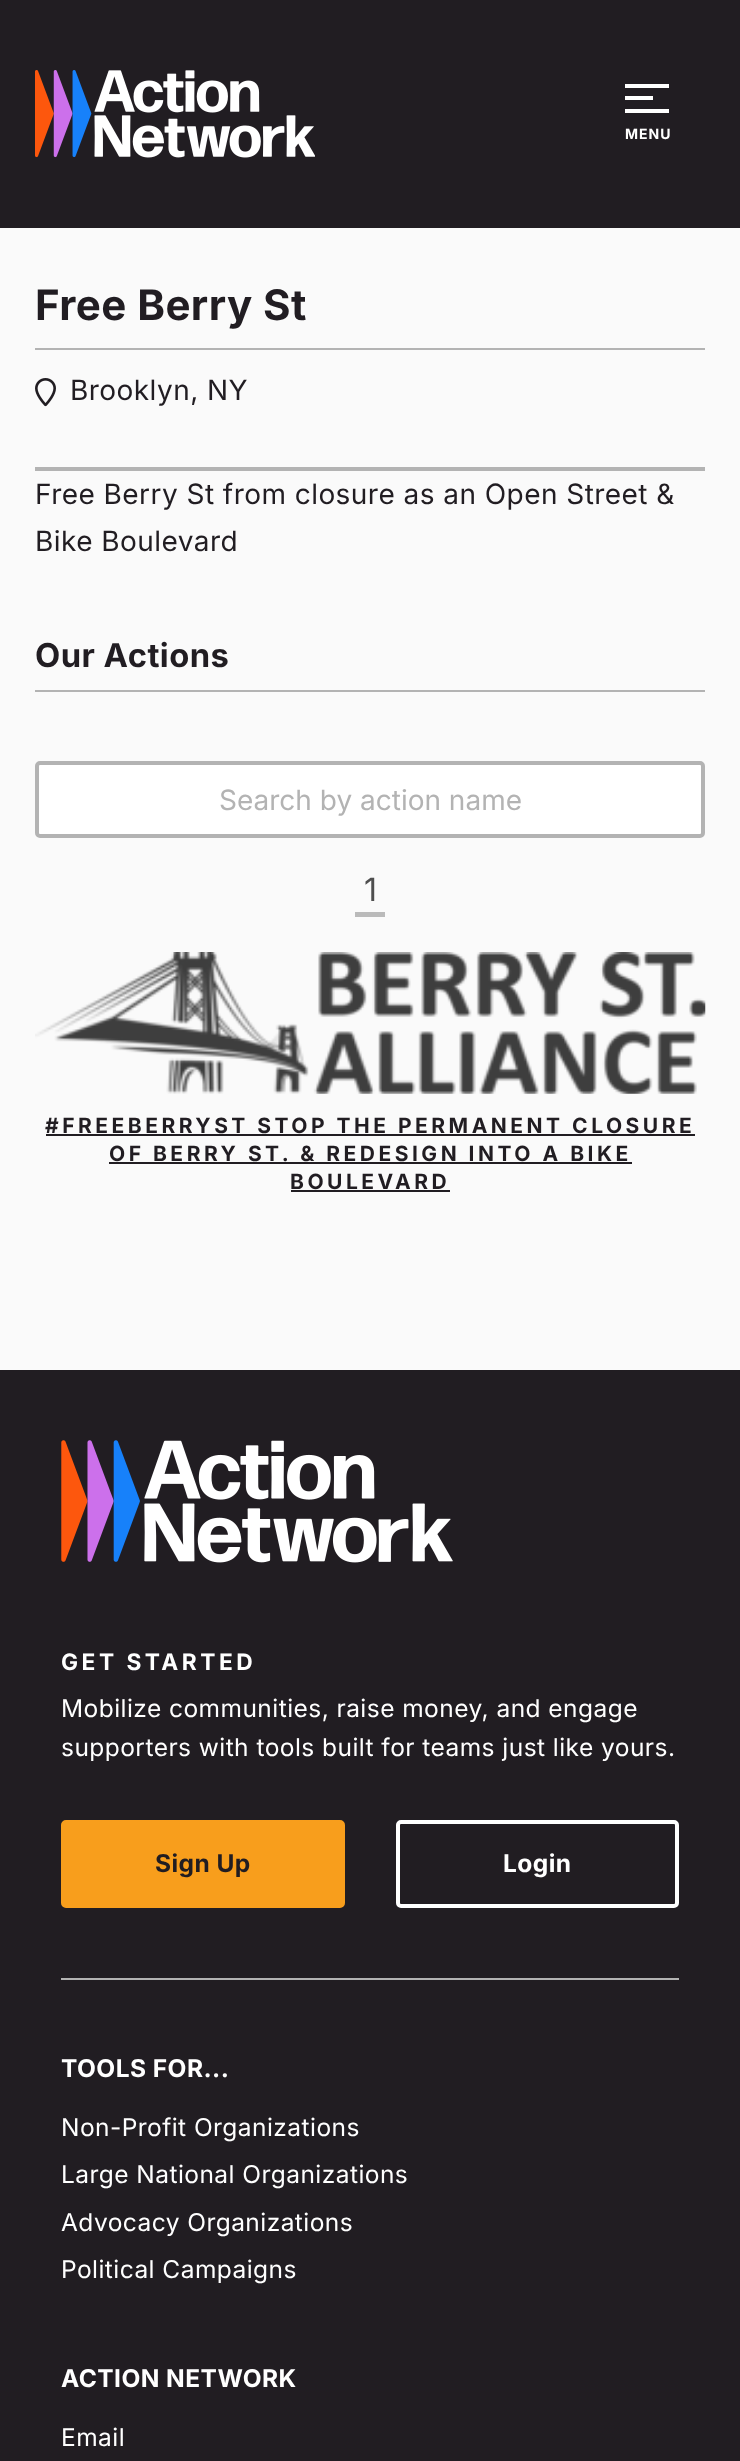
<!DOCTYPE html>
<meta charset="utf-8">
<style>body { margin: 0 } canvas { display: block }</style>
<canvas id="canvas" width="740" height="2461"></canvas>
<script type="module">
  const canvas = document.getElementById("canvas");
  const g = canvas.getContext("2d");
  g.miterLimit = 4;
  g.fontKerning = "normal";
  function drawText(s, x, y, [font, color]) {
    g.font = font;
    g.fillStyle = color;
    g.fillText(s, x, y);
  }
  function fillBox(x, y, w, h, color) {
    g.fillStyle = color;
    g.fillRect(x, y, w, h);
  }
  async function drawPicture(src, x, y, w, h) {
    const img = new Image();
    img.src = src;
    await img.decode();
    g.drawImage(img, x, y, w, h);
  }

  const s1 = ["bold 14px Inter", "#FFFFFF"];
  const s2 = ["bold 42px Inter", "#211D22"];
  const s3 = ["28px Inter", "#211D22"];
  const s4 = ["bold 32.75px Inter", "#211D22"];
  const s5 = ["28px Inter", "#B3B3B3"];
  const s6 = ["32px Inter", "#4E4E4E"];
  const s7 = ["bold 21px Inter", "#211D22"];
  const s8 = ["bold 22.75px Inter", "#FFFFFF"];
  const s9 = ["24.5px Inter", "#FFFFFF"];
  const s10 = ["bold 24.5px Inter", "#211D22"];
  const s11 = ["bold 24.5px Inter", "#FFFFFF"];

  fillBox(0, 0, 740, 2461, "#211D22");
  await drawPicture("pic1.png", 35, 70, 280, 88);
  fillBox(625, 96, 28, 4, "#FFFFFF");
  fillBox(625, 84, 44, 4, "#FFFFFF");
  fillBox(625, 109, 44, 4, "#FFFFFF");
  g.letterSpacing = "1px";
  drawText("MENU", 625, 139, s1);
  fillBox(0, 228, 740, 1142, "#FAFAFA");
  fillBox(35, 348, 670, 2, "#B3B3B3");
  g.letterSpacing = "0.45px";
  drawText("Free Berry St", 35, 320, s2);
  await drawPicture("pic2.png", 35, 378, 21, 29);
  drawText("Brooklyn, NY", 70, 400, s3);
  fillBox(35, 467, 670, 4, "#B3B3B3");
  drawText("Free Berry St from closure as an Open Street &", 35, 504, s3);
  drawText("Bike Boulevard", 35, 551, s3);
  fillBox(35, 690, 670, 2, "#B3B3B3");
  drawText("Our Actions", 35, 667, s4);
  g.fillStyle = "#FFFFFF";
  g.beginPath();
  g.roundRect(37, 763, 666, 73, 3);
  g.fill();
  g.strokeStyle = "#B3B3B3";
  g.lineWidth = 4;
  g.stroke();
  g.letterSpacing = "0px";
  drawText("Search by action name", 219, 810, s5);
  fillBox(355, 912, 30, 5, "#BABABA");
  g.letterSpacing = "0.45px";
  drawText("1", 364, 901, s6);
  await drawPicture("pic3.png", 35, 952, 671, 142);
  g.letterSpacing = "3.5px";
  drawText("#FREEBERRYST STOP THE PERMANENT CLOSURE", 45, 1133, s7);
  fillBox(46, 1134, 649, 2, "#211D22");
  drawText("OF BERRY ST. & REDESIGN INTO A BIKE", 109, 1161, s7);
  fillBox(109, 1162, 523, 2, "#211D22");
  drawText("BOULEVARD", 290, 1189, s7);
  fillBox(291, 1190, 159, 2, "#211D22");
  await drawPicture("pic4.png", 61, 1440, 392, 123);
  drawText("GET STARTED", 61, 1670, s8);
  g.letterSpacing = "0.45px";
  drawText("Mobilize communities, raise money, and engage", 61, 1717, s9);
  drawText("supporters with tools built for teams just like yours.", 61, 1756, s9);
  g.fillStyle = "#F89E1C";
  g.beginPath();
  g.roundRect(63, 1822, 280, 84, 3);
  g.fill();
  g.strokeStyle = "#F89E1C";
  g.stroke();
  drawText("Sign Up", 155, 1872, s10);
  g.beginPath();
  g.roundRect(398, 1822, 279, 84, 3);
  g.strokeStyle = "#FFFFFF";
  g.stroke();
  drawText("Login", 503, 1872, s11);
  fillBox(61, 1978, 618, 2, "#B3B3B3");
  drawText("TOOLS FOR...", 61, 2077, s11);
  drawText("Non-Profit Organizations", 61, 2136, s9);
  drawText("Large National Organizations", 61, 2183, s9);
  drawText("Advocacy Organizations", 61, 2231, s9);
  drawText("Political Campaigns", 61, 2278, s9);
  drawText("ACTION NETWORK", 61, 2387, s11);
  drawText("Email", 61, 2446, s9);
</script>
